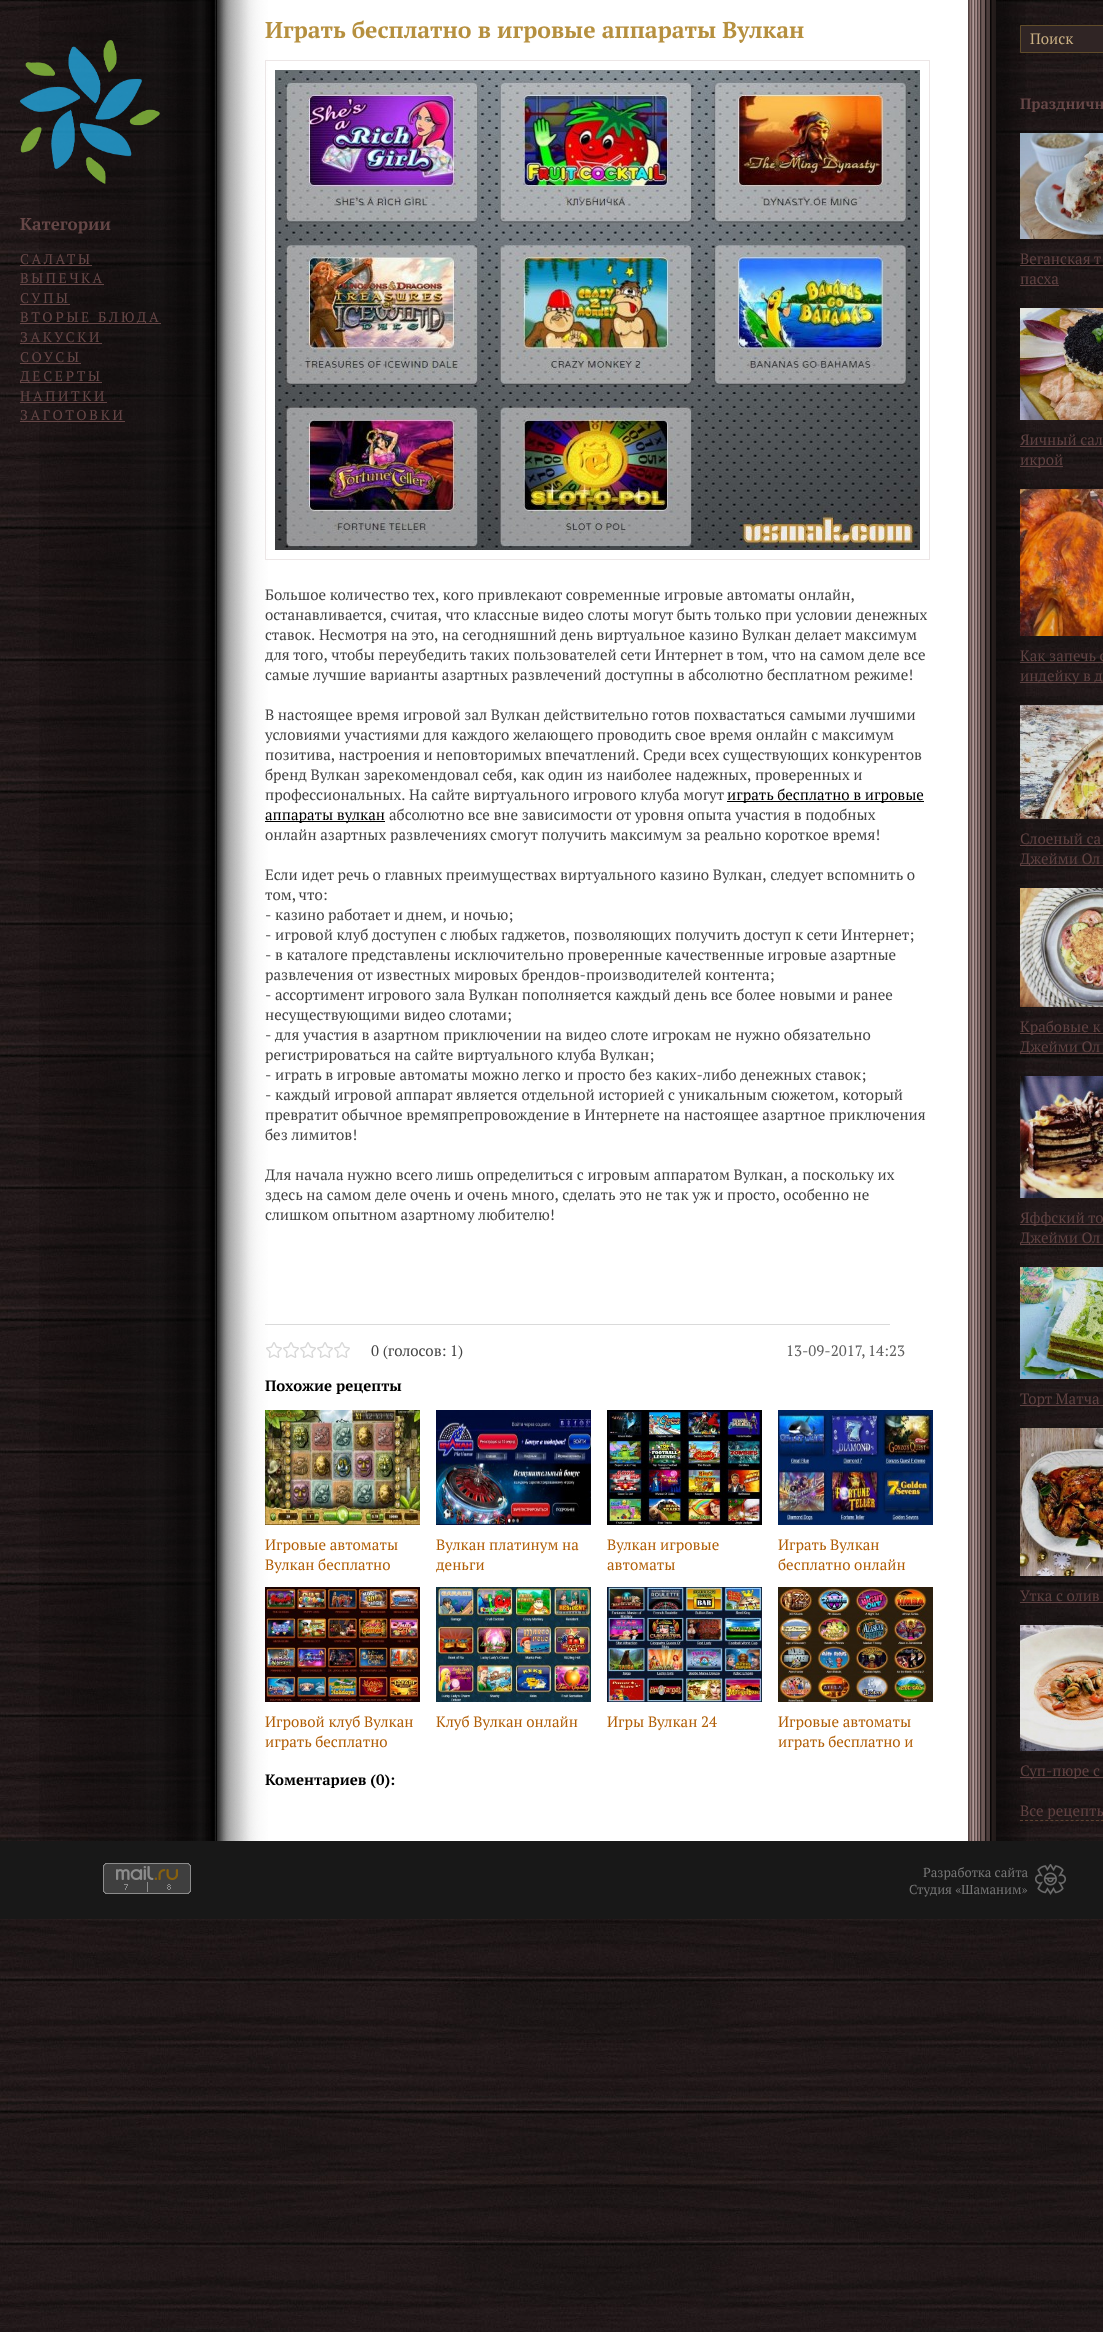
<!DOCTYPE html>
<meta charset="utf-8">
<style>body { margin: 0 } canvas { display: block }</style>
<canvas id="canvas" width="1103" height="2332"></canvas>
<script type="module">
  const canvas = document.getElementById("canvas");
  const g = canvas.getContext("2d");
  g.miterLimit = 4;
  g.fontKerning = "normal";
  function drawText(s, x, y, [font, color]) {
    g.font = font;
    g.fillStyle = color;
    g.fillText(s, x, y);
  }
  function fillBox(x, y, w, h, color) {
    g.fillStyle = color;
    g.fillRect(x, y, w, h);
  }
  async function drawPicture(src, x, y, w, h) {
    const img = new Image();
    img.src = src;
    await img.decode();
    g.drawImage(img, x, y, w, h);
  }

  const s1 = ["bold 17px PT Serif", "#654646"];
  const s2 = ["14px PT Serif", "#654646"];
  const s3 = ["bold 23px PT Serif", "#B6903F"];
  const s4 = ["15px PT Serif", "#444444"];
  const s5 = ["15px PT Serif", "#000000"];
  const s6 = ["15px PT Serif", "#5E5E5E"];
  const s7 = ["bold 15px PT Serif", "#000000"];
  const s8 = ["15px PT Serif", "#B15F07"];
  const s9 = ["15px PT Serif", "#C9AF83"];
  const s10 = ["bold 15px PT Serif", "#654646"];
  const s11 = ["15px PT Serif", "#5E4141"];
  const s12 = ["13px PT Serif", "#757575"];

  fillBox(0, 0, 1103, 2332, "#FFFFFF");
  await drawPicture("pic1.png", 0, 0, 1103, 2332);
  await drawPicture("pic2.png", 39, 0, 987, 1841);
  await drawPicture("pic3.png", 20, 40, 140, 144);
  drawText("Категории", 20, 230, s1);
  g.letterSpacing = "2.7px";
  drawText("САЛАТЫ", 20, 264, s2);
  fillBox(20, 265, 72, 1, "#654646");
  drawText("ВЫПЕЧКА", 20, 283, s2);
  fillBox(20, 284, 84, 1, "#654646");
  drawText("СУПЫ", 20, 303, s2);
  fillBox(20, 304, 50, 1, "#654646");
  fillBox(20, 323, 141, 1, "#654646");
  drawText("ВТОРЫЕ БЛЮДА", 20, 322, s2);
  drawText("ЗАКУСКИ", 20, 342, s2);
  fillBox(20, 343, 82, 1, "#654646");
  drawText("СОУСЫ", 20, 362, s2);
  fillBox(20, 363, 61, 1, "#654646");
  fillBox(20, 382, 82, 1, "#654646");
  drawText("ДЕСЕРТЫ", 20, 381, s2);
  drawText("НАПИТКИ", 20, 401, s2);
  fillBox(20, 402, 87, 1, "#654646");
  drawText("ЗАГОТОВКИ", 20, 420, s2);
  fillBox(20, 421, 105, 1, "#654646");
  g.letterSpacing = "0px";
  drawText("Играть бесплатно в игровые аппараты Вулкан", 265, 38, s3);
  g.strokeStyle = "#ECE6E6";
  g.strokeRect(265.5, 60.5, 664, 499);
  await drawPicture("pic4.png", 275, 70, 645, 480);
  drawText("Большое количество тех, кого привлекают современные игровые автоматы онлайн,", 265, 600, s4);
  drawText("останавливается, считая, что классные видео слоты могут быть только при условии денежных", 265, 620, s4);
  drawText("ставок. Несмотря на это, на сегодняшний день виртуальное казино Вулкан делает максимум", 265, 640, s4);
  drawText("для того, чтобы переубедить таких пользователей сети Интернет в том, что на самом деле все", 265, 660, s4);
  drawText("самые лучшие варианты азартных развлечений доступны в абсолютно бесплатном режиме!", 265, 680, s4);
  drawText("В настоящее время игровой зал Вулкан действительно готов похвастаться самыми лучшими", 265, 720, s4);
  drawText("условиями участиями для каждого желающего проводить свое время онлайн с максимум", 265, 740, s4);
  g.wordSpacing = "-0.25px";
  drawText("позитива, настроения и неповторимых впечатлений. Среди всех существующих конкурентов", 265, 760, s4);
  g.wordSpacing = "0px";
  drawText("бренд Вулкан зарекомендовал себя, как один из наиболее надежных, проверенных и", 265, 780, s4);
  drawText("профессиональных. На сайте виртуального игрового клуба могут", 265, 800, s4);
  fillBox(727, 801, 197, 1, "#000000");
  drawText("играть бесплатно в игровые", 727, 800, s5);
  fillBox(265, 821, 120, 1, "#000000");
  drawText("аппараты вулкан", 265, 820, s5);
  drawText("абсолютно все вне зависимости от уровня опыта участия в подобных", 389, 820, s4);
  drawText("онлайн азартных развлечениях смогут получить максимум за реально короткое время!", 265, 840, s4);
  drawText("Если идет речь о главных преимуществах виртуального казино Вулкан, следует вспомнить о", 265, 880, s4);
  g.wordSpacing = "-1px";
  drawText("том, что:", 265, 900, s4);
  g.wordSpacing = "0px";
  drawText("- казино работает и днем, и ночью;", 265, 920, s4);
  drawText("- игровой клуб доступен с любых гаджетов, позволяющих получить доступ к сети Интернет;", 265, 940, s4);
  drawText("- в каталоге представлены исключительно проверенные качественные игровые азартные", 265, 960, s4);
  drawText("развлечения от известных мировых брендов-производителей контента;", 265, 980, s4);
  drawText("- ассортимент игрового зала Вулкан пополняется каждый день все более новыми и ранее", 265, 1000, s4);
  drawText("несуществующими видео слотами;", 265, 1020, s4);
  drawText("- для участия в азартном приключении на видео слоте игрокам не нужно обязательно", 265, 1040, s4);
  drawText("регистрироваться на сайте виртуального клуба Вулкан;", 265, 1060, s4);
  drawText("- играть в игровые автоматы можно легко и просто без каких-либо денежных ставок;", 265, 1080, s4);
  drawText("- каждый игровой аппарат является отдельной историей с уникальным сюжетом, который", 265, 1100, s4);
  drawText("превратит обычное времяпрепровождение в Интернете на настоящее азартное приключения", 265, 1120, s4);
  drawText("без лимитов!", 265, 1140, s4);
  drawText("Для начала нужно всего лишь определиться с игровым аппаратом Вулкан, а поскольку их", 265, 1180, s4);
  drawText("здесь на самом деле очень и очень много, сделать это не так уж и просто, особенно не", 265, 1200, s4);
  drawText("слишком опытном азартному любителю!", 265, 1220, s4);
  fillBox(265, 1324, 625, 1, "#DADADA");
  await drawPicture("pic5.png", 266, 1342, 84, 16);
  drawText("0 (голосов: 1)", 371, 1356, s4);
  g.wordSpacing = "-1px";
  drawText("13-09-2017, 14:23", 786, 1356, s6);
  g.wordSpacing = "0px";
  drawText("Похожие рецепты", 265, 1391, s7);
  await drawPicture("pic6.png", 265, 1410, 155, 115);
  drawText("Игровые автоматы", 265, 1550, s8);
  drawText("Вулкан бесплатно", 265, 1570, s8);
  await drawPicture("pic7.png", 436, 1410, 155, 115);
  drawText("Вулкан платинум на", 436, 1550, s8);
  drawText("деньги", 436, 1570, s8);
  await drawPicture("pic8.png", 607, 1410, 155, 115);
  drawText("Вулкан игровые", 607, 1550, s8);
  drawText("автоматы", 607, 1570, s8);
  await drawPicture("pic9.png", 778, 1410, 155, 115);
  drawText("Играть Вулкан", 778, 1550, s8);
  drawText("бесплатно онлайн", 778, 1570, s8);
  await drawPicture("pic10.png", 265, 1587, 155, 115);
  drawText("Игровой клуб Вулкан", 265, 1727, s8);
  drawText("играть бесплатно", 265, 1747, s8);
  await drawPicture("pic11.png", 436, 1587, 155, 115);
  drawText("Клуб Вулкан онлайн", 436, 1727, s8);
  await drawPicture("pic12.png", 607, 1587, 155, 115);
  drawText("Игры Вулкан 24", 607, 1727, s8);
  await drawPicture("pic13.png", 778, 1587, 155, 115);
  drawText("Игровые автоматы", 778, 1727, s8);
  drawText("играть бесплатно и", 778, 1747, s8);
  drawText("Коментариев (0):", 265, 1785, s7);
  g.fillStyle = "#302525";
  g.beginPath();
  g.rect(1020.5, 25.5, 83, 27);
  g.fill();
  g.strokeStyle = "#604C2A";
  g.stroke();
  drawText("Поиск", 1030, 44, s9);
  drawText("Праздничн", 1020, 109, s10);
  await drawPicture("pic14.png", 1020, 133, 83, 106);
  drawText("Веганская т", 1020, 264, s11);
  fillBox(1020, 265, 83, 1, "rgba(101, 70, 70, 0.9)");
  drawText("пасха", 1020, 284, s11);
  fillBox(1020, 285, 39, 1, "rgba(101, 70, 70, 0.9)");
  await drawPicture("pic15.png", 1020, 308, 83, 112);
  drawText("Яичный сал", 1020, 445, s11);
  fillBox(1020, 446, 83, 1, "rgba(101, 70, 70, 0.9)");
  fillBox(1020, 466, 43, 1, "rgba(101, 70, 70, 0.9)");
  drawText("икрой", 1020, 465, s11);
  await drawPicture("pic16.png", 1020, 489, 83, 147);
  drawText("Как запечь с", 1020, 661, s11);
  fillBox(1020, 662, 83, 1, "rgba(101, 70, 70, 0.9)");
  fillBox(1020, 682, 83, 1, "rgba(101, 70, 70, 0.9)");
  drawText("индейку в д", 1020, 681, s11);
  await drawPicture("pic17.png", 1020, 705, 83, 114);
  drawText("Слоеный са", 1020, 844, s11);
  fillBox(1020, 845, 83, 1, "rgba(101, 70, 70, 0.9)");
  fillBox(1020, 865, 83, 1, "rgba(101, 70, 70, 0.9)");
  drawText("Джейми Ол", 1020, 864, s11);
  await drawPicture("pic18.png", 1020, 888, 83, 119);
  fillBox(1020, 1033, 83, 1, "rgba(101, 70, 70, 0.9)");
  drawText("Крабовые к", 1020, 1032, s11);
  fillBox(1020, 1053, 83, 1, "rgba(101, 70, 70, 0.9)");
  drawText("Джейми Ол", 1020, 1052, s11);
  await drawPicture("pic19.png", 1020, 1076, 83, 122);
  fillBox(1020, 1224, 83, 1, "rgba(101, 70, 70, 0.9)");
  drawText("Яффский то", 1020, 1223, s11);
  fillBox(1020, 1244, 83, 1, "rgba(101, 70, 70, 0.9)");
  drawText("Джейми Ол", 1020, 1243, s11);
  await drawPicture("pic20.png", 1020, 1267, 83, 112);
  fillBox(1020, 1405, 83, 1, "rgba(101, 70, 70, 0.9)");
  drawText("Торт Матча", 1020, 1404, s11);
  await drawPicture("pic21.png", 1020, 1428, 83, 148);
  drawText("Утка с олив", 1020, 1601, s11);
  fillBox(1020, 1602, 83, 1, "rgba(101, 70, 70, 0.9)");
  await drawPicture("pic22.png", 1020, 1625, 83, 126);
  fillBox(1020, 1777, 83, 1, "rgba(101, 70, 70, 0.9)");
  drawText("Суп-пюре с", 1020, 1776, s11);
  g.beginPath();
  g.moveTo(1020, 1820.5);
  g.lineTo(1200, 1820.5);
  g.strokeStyle = "rgba(102, 71, 52, 0.9)";
  g.setLineDash([3, 2.06]);
  g.stroke();
  drawText("Все рецепты", 1020, 1816, s11);
  fillBox(0, 1841, 1103, 78, "#181818");
  await drawPicture("pic23.png", 103, 1863, 88, 31);
  await drawPicture("pic24.png", 1035, 1864, 31, 31);
  drawText("Разработка сайта", 923, 1877, s12);
  drawText("Студия «Шаманим»", 909, 1894, s12);
</script>
